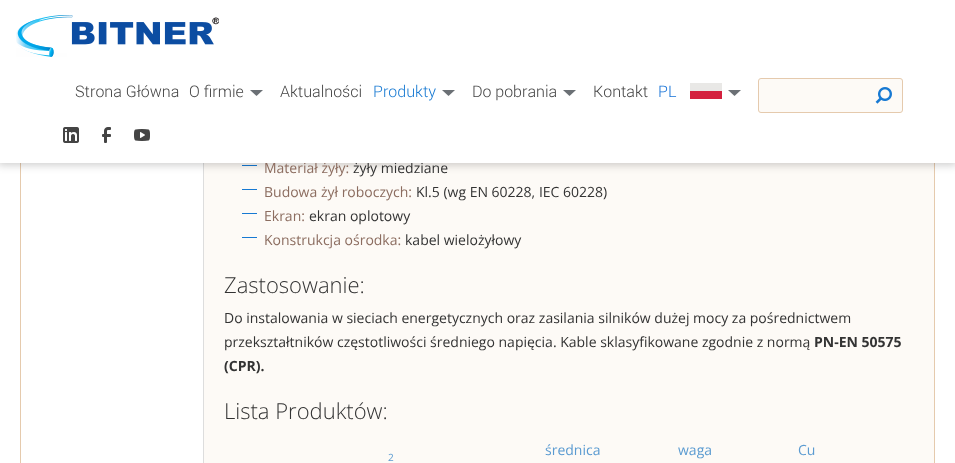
<!DOCTYPE html>
<meta charset="utf-8">
<style>body { margin: 0 } canvas { display: block }</style>
<canvas id="canvas" width="955" height="463"></canvas>
<script type="module">
  const canvas = document.getElementById("canvas");
  const g = canvas.getContext("2d");
  g.miterLimit = 4;
  g.fontKerning = "none";
  function drawText(s, x, y, [font, color]) {
    g.font = font;
    g.fillStyle = color;
    g.fillText(s, x, y);
  }
  function fillBox(x, y, w, h, color) {
    g.fillStyle = color;
    g.fillRect(x, y, w, h);
  }
  function fillRounded(x, y, w, h, r, color) {
    g.fillStyle = color;
    g.beginPath();
    g.roundRect(x, y, w, h, r);
    g.fill();
  }
  async function drawPicture(src, x, y, w, h) {
    const img = new Image();
    img.src = src;
    await img.decode();
    g.drawImage(img, x, y, w, h);
  }

  const s1 = ["14px Open Sans", "#8C6D60"];
  const s2 = ["14px Open Sans", "#333333"];
  const s3 = ["300 16px Roboto", "#444444"];
  const s4 = ["300 16px Roboto", "#1779D2"];
  const s5 = ["300 16px Roboto", "#1571D6"];
  const s6 = ["300 22px Open Sans", "#333333"];
  const s7 = ["bold 14px Open Sans", "#333333"];
  const s8 = ["10px Open Sans", "#5B9BD1"];
  const s9 = ["14px Open Sans", "#5B9BD1"];

  fillBox(0, 0, 955, 463, "#FFFFFF");
  g.strokeStyle = "#E5CAAD";
  g.strokeRect(20.5, -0.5, 914, 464);
  fillBox(204, 163, 730, 300, "#FDFAF6");
  fillBox(203, 163, 1, 300, "#DDDDDD");
  fillBox(242, 165, 15, 1, "#1779D2");
  g.fillStyle = "rgba(0, 0, 0, 0.2)";
  g.filter = "blur(4px)";
  g.beginPath();
  g.rect(-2, -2, 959, 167);
  g.fill();
  g.filter = "none";
  drawText("Materiał żyły:", 264, 173, s1);
  drawText("żyły miedziane", 353, 173, s2);
  fillBox(0, 0, 955, 163, "#FFFFFF");
  await drawPicture("pic1.png", 16, 15, 203, 42);
  drawText("Strona Główna", 75, 97, s3);
  drawText("O firmie", 189, 97, s3);
  await drawPicture("pic2.png", 250, 90, 13, 6);
  drawText("Aktualności", 280, 97, s3);
  drawText("Produkty", 373, 97, s4);
  await drawPicture("pic2.png", 442, 90, 13, 6);
  drawText("Do pobrania", 472, 97, s3);
  await drawPicture("pic2.png", 563, 90, 13, 6);
  drawText("Kontakt", 593, 97, s3);
  drawText("PL", 658, 97, s5);
  await drawPicture("pic3.png", 690, 83, 32, 16);
  await drawPicture("pic2.png", 728, 90, 13, 6);
  fillRounded(758, 78, 145, 35, 3, "#FDFAF6");
  await drawPicture("pic4.png", 875, 87, 17, 17);
  g.beginPath();
  g.roundRect(758.5, 78.5, 144, 34, 2.5);
  g.stroke();
  await drawPicture("pic5.png", 63, 127, 16, 16);
  await drawPicture("pic6.png", 102, 127, 9, 16);
  await drawPicture("pic7.png", 134, 129, 16, 12);
  fillBox(242, 189, 15, 1, "#1779D2");
  drawText("Budowa żył roboczych:", 264, 197, s1);
  drawText("Kl.5 (wg EN 60228, IEC 60228)", 416, 197, s2);
  fillBox(242, 213, 15, 1, "#1779D2");
  drawText("Ekran:", 264, 221, s1);
  drawText("ekran oplotowy", 309, 221, s2);
  fillBox(242, 237, 15, 1, "#1779D2");
  drawText("Konstrukcja ośrodka:", 264, 245, s1);
  drawText("kabel wielożyłowy", 405, 245, s2);
  drawText("Zastosowanie:", 224, 293, s6);
  drawText("Do instalowania w sieciach energetycznych oraz zasilania silników dużej mocy za pośrednictwem", 224, 323, s2);
  drawText("przekształtników częstotliwości średniego napięcia. Kable sklasyfikowane zgodnie z normą", 224, 347, s2);
  drawText("PN-EN 50575", 814, 347, s7);
  drawText("(CPR).", 224, 371, s7);
  drawText("Lista Produktów:", 224, 419, s6);
  drawText("2", 388, 461, s8);
  drawText("średnica", 545, 455, s9);
  drawText("waga", 678, 455, s9);
  drawText("Cu", 798, 455, s9);
</script>
